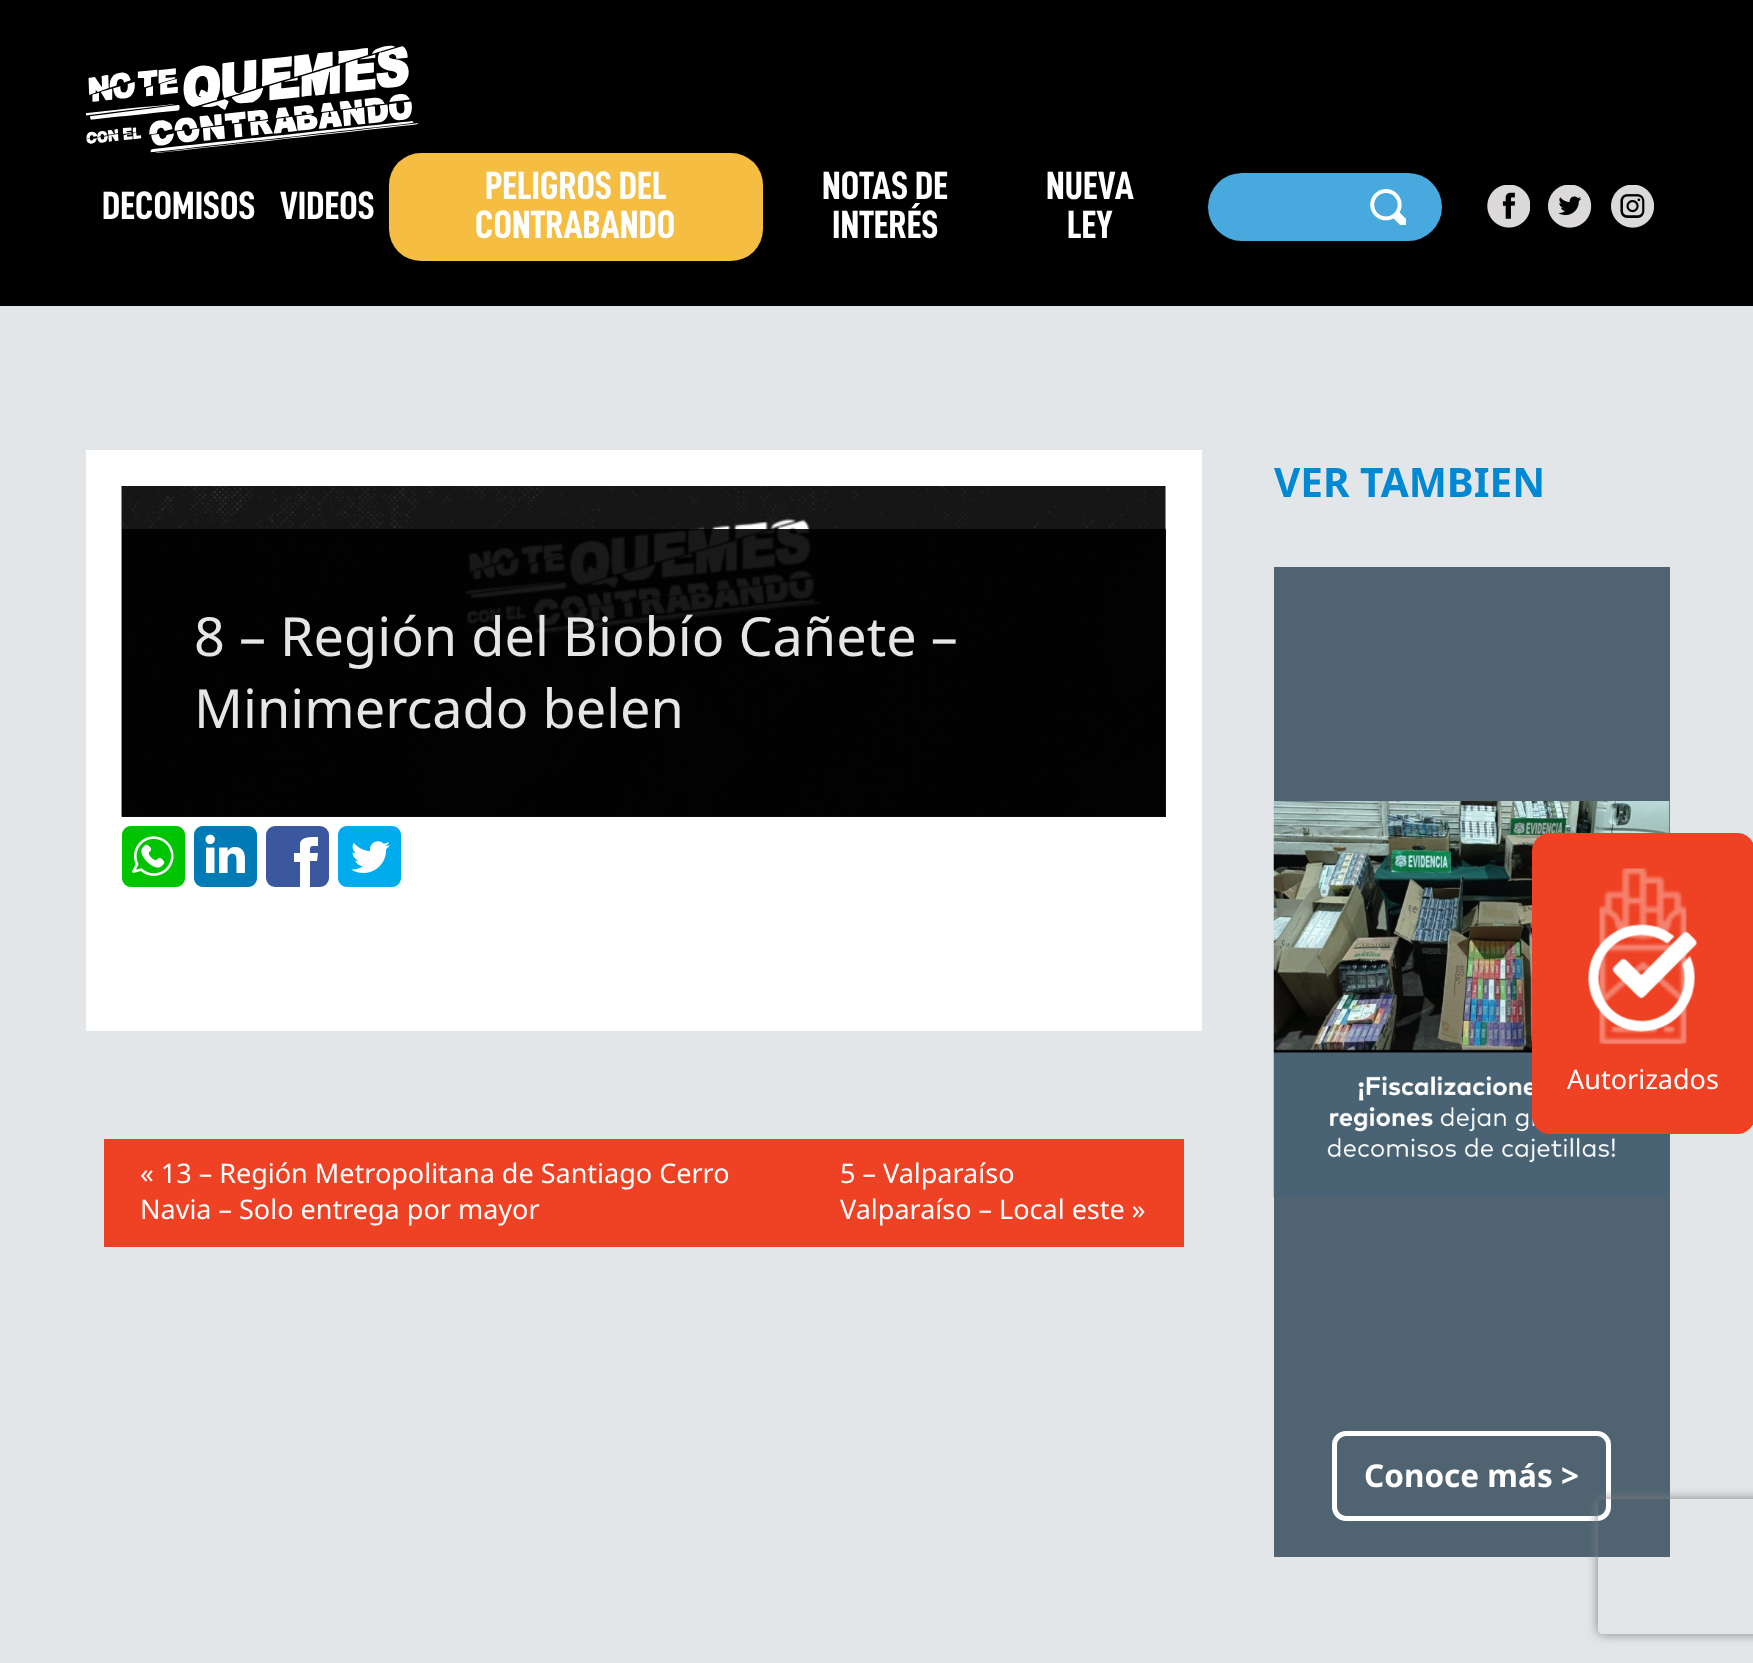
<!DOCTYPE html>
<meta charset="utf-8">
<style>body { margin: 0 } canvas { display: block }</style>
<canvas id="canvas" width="1753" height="1663"></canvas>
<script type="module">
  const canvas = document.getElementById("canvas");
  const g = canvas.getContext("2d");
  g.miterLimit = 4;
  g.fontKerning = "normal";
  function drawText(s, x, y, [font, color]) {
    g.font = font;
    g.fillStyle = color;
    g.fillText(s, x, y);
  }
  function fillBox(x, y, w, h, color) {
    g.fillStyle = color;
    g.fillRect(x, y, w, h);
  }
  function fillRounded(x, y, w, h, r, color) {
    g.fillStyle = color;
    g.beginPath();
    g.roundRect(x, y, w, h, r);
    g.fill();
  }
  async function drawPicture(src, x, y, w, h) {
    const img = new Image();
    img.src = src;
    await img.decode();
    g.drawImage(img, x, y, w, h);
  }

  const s1 = ["bold 39.5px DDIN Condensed", "#FFFFFF"];
  const s2 = ["54px Noto Sans", "#E6E6E6"];
  const s3 = ["27px Noto Sans", "#FFFFFF"];
  const s4 = ["bold 40.5px Noto Sans", "#0188D2"];
  const s5 = ["bold 31.5px Noto Sans", "#FFFFFF"];

  fillBox(0, 0, 1753, 1663, "#000000");
  await drawPicture("pic1.png", 86, 45, 333, 108);
  drawText("DECOMISOS", 102, 219, s1);
  drawText("VIDEOS", 280, 219, s1);
  fillRounded(389, 153, 374, 108, 32, "#F5BD41");
  drawText("PELIGROS DEL", 485, 199, s1);
  drawText("CONTRABANDO", 475, 238, s1);
  drawText("NOTAS DE", 822, 199, s1);
  drawText("INTERÉS", 832, 238, s1);
  drawText("NUEVA", 1046, 199, s1);
  drawText("LEY", 1067, 238, s1);
  fillRounded(1208, 173, 234, 68, 34, "#48A9DF");
  await drawPicture("pic2.png", 1370, 189, 36, 36);
  await drawPicture("pic3.png", 1487, 185, 43, 43);
  await drawPicture("pic4.png", 1548, 185, 44, 43);
  await drawPicture("pic5.png", 1611, 185, 43, 43);
  fillBox(0, 306, 1753, 1357, "#E2E6E8");
  fillBox(86, 450, 1116, 581, "#FFFFFF");
  await drawPicture("pic6.png", 121, 486, 1045, 331);
  fillBox(122, 529, 1044, 288, "rgba(0, 0, 0, 0.9)");
  drawText("8 – Región del Biobío Cañete –", 194, 656, s2);
  drawText("Minimercado belen", 194, 728, s2);
  await drawPicture("pic7.png", 122, 826, 63, 61);
  await drawPicture("pic8.png", 194, 826, 63, 61);
  fillRounded(266, 826, 63, 61, 9, "#3B579D");
  g.fillStyle = "#FFFFFF";
  g.beginPath();
  g.moveTo(318, 837);
  g.bezierCurveTo(312, 837, 302, 836, 300, 843);
  g.lineTo(300, 853);
  g.lineTo(294, 853);
  g.lineTo(294, 862);
  g.lineTo(300, 862);
  g.lineTo(300, 887);
  g.lineTo(310, 887);
  g.lineTo(310, 861);
  g.lineTo(317, 861);
  g.lineTo(318, 853);
  g.lineTo(310, 853);
  g.bezierCurveTo(310, 845, 310, 846, 318, 846);
  g.closePath();
  g.fill();
  await drawPicture("pic9.png", 338, 826, 63, 61);
  fillBox(104, 1139, 1080, 108, "#EF4123");
  drawText("« 13 – Región Metropolitana de Santiago Cerro", 140, 1183, s3);
  drawText("Navia – Solo entrega por mayor", 140, 1219, s3);
  drawText("5 – Valparaíso", 840, 1183, s3);
  drawText("Valparaíso – Local este »", 840, 1219, s3);
  drawText("VER TAMBIEN", 1274, 497, s4);
  fillBox(1274, 567, 396, 990, "#4F6371");
  await drawPicture("pic10.png", 1273, 801, 397, 396);
  g.beginPath();
  g.roundRect(1334.5, 1433.5, 274, 85, 11.5);
  g.strokeStyle = "#FFFFFF";
  g.lineWidth = 5;
  g.stroke();
  drawText("Conoce más >", 1364, 1487, s5);
  fillRounded(1532, 833, 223, 301, 18, "#EF4123");
  await drawPicture("pic11.png", 1588, 868, 109, 177);
  drawText("Autorizados", 1567, 1089, s3);
  g.save();
  g.beginPath();
  g.moveTo(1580, 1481);
  g.lineTo(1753, 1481);
  g.lineTo(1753, 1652);
  g.lineTo(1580, 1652);
  g.closePath();
  g.moveTo(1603, 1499);
  g.lineTo(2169, 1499);
  g.bezierCurveTo(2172, 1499, 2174, 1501, 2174, 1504);
  g.lineTo(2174, 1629);
  g.bezierCurveTo(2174, 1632, 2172, 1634, 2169, 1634);
  g.lineTo(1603, 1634);
  g.bezierCurveTo(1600, 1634, 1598, 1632, 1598, 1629);
  g.lineTo(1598, 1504);
  g.bezierCurveTo(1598, 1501, 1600, 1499, 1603, 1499);
  g.closePath();
  g.clip("evenodd");
  g.fillStyle = "#808080";
  g.filter = "blur(5.5px)";
  g.beginPath();
  g.roundRect(1598, 1499, 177, 135, 5);
  g.fill();
  g.filter = "none";
  g.restore();
</script>
